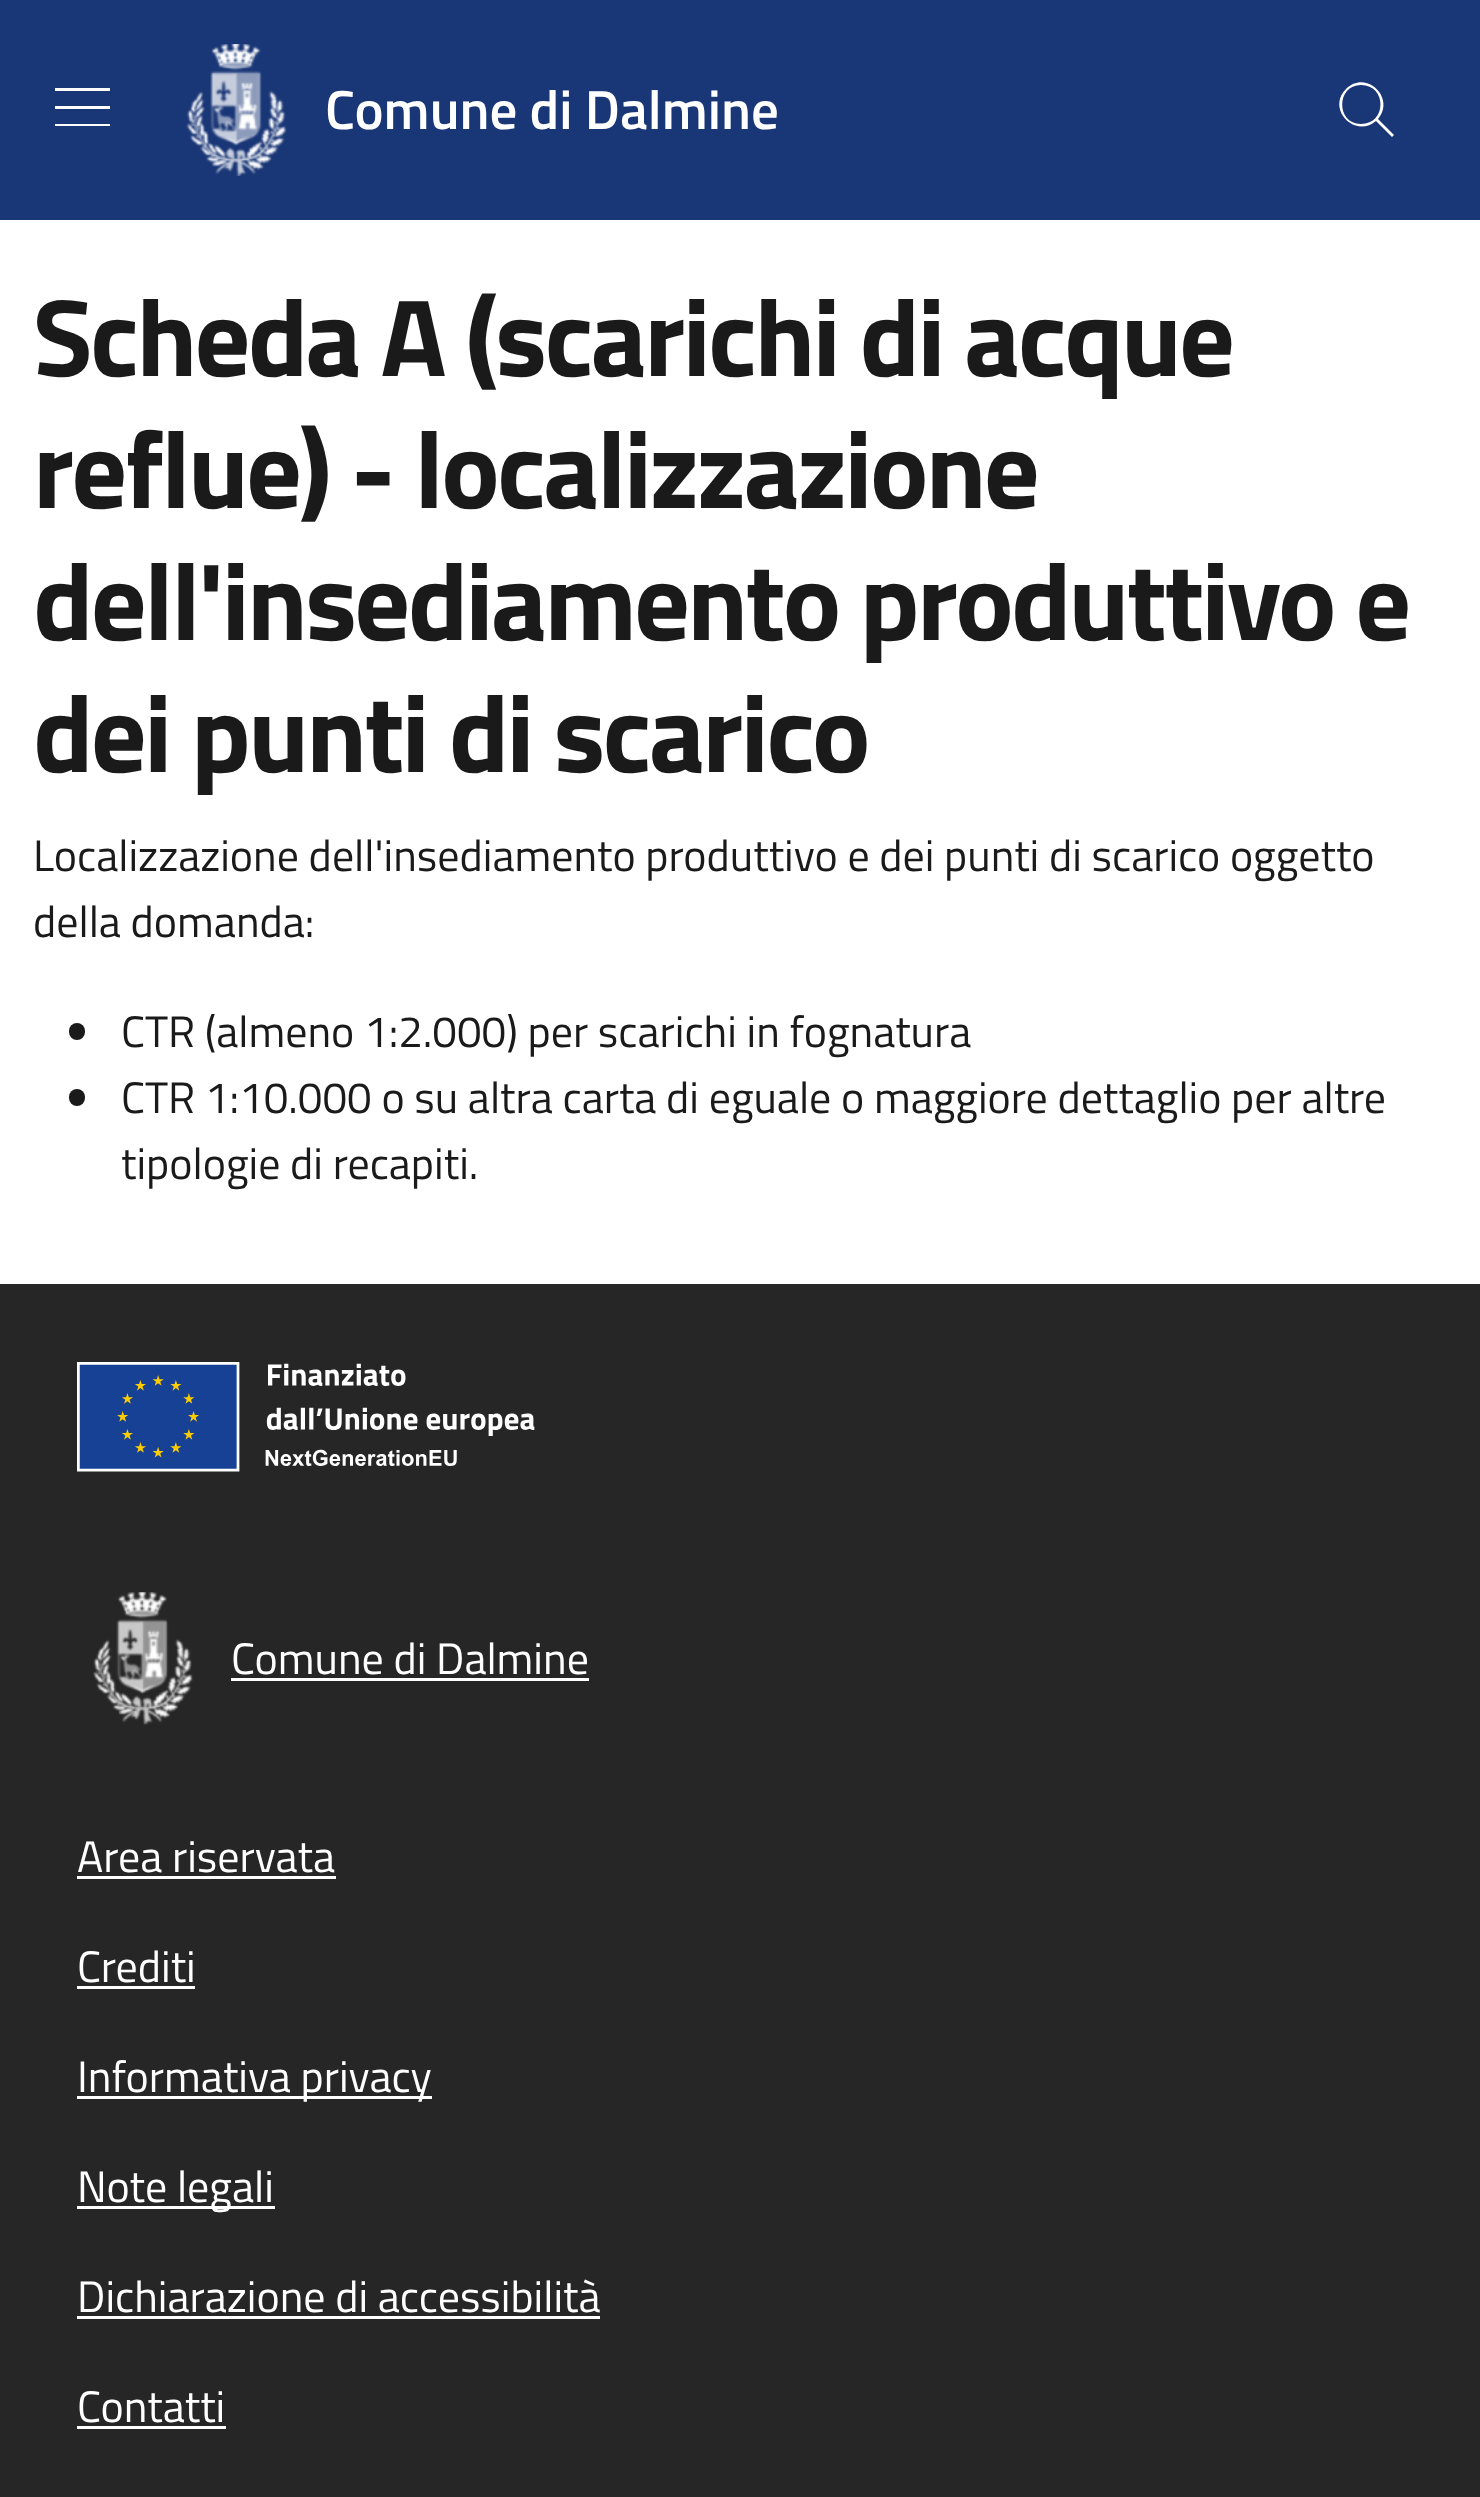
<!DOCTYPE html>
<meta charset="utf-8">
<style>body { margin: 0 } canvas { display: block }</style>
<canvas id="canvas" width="1480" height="2497"></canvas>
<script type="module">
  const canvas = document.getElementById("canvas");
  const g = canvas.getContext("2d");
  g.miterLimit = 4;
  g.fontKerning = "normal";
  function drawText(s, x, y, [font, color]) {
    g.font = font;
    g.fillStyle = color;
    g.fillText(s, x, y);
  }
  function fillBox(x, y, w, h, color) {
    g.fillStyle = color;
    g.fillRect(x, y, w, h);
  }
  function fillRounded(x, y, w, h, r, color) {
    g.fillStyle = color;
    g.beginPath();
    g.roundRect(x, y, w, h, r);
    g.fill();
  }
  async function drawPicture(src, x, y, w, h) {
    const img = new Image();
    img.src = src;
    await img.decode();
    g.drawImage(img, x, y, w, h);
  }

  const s1 = ["600 55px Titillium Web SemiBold", "#FFFFFF"];
  const s2 = ["bold 110px Titillium Web", "#1A1A1A"];
  const s3 = ["44px Titillium Web", "#1A1A1A"];
  const s4 = ["44px Titillium Web", "#FFFFFF"];

  fillBox(0, 0, 1480, 2497, "#FFFFFF");
  fillBox(0, 0, 1480, 220, "#193676");
  g.fillStyle = "#FFFFFF";
  g.beginPath();
  g.moveTo(110, 88);
  g.lineTo(110, 91);
  g.lineTo(55, 91);
  g.lineTo(55, 88);
  g.closePath();
  g.moveTo(55, 109);
  g.lineTo(110, 109);
  g.lineTo(110, 106);
  g.lineTo(55, 106);
  g.closePath();
  g.moveTo(55, 126);
  g.lineTo(110, 126);
  g.lineTo(110, 124);
  g.lineTo(55, 124);
  g.closePath();
  g.fill();
  await drawPicture("pic1.png", 186, 44, 101, 132);
  drawText("Comune di Dalmine", 325, 129, s1);
  g.beginPath();
  g.moveTo(1394, 135);
  g.lineTo(1378, 119);
  g.bezierCurveTo(1396, 98, 1366, 69, 1346, 89);
  g.bezierCurveTo(1326, 109, 1355, 139, 1376, 121);
  g.lineTo(1392, 137);
  g.closePath();
  g.moveTo(1361, 124);
  g.bezierCurveTo(1336, 124, 1336, 85, 1361, 85);
  g.bezierCurveTo(1387, 85, 1387, 124, 1361, 124);
  g.closePath();
  g.fill();
  g.letterSpacing = "-2.75px";
  drawText("Scheda A (scarichi di acque", 33, 376, s2);
  drawText("reflue) - localizzazione", 33, 508, s2);
  drawText("dell'insediamento produttivo e", 33, 640, s2);
  drawText("dei punti di scarico", 33, 772, s2);
  g.letterSpacing = "0px";
  drawText("Localizzazione dell'insediamento produttivo e dei punti di scarico oggetto", 33, 871, s3);
  drawText("della domanda:", 33, 937, s3);
  fillRounded(69, 1023, 16, 17, 8, "#1A1A1A");
  drawText("CTR (almeno 1:2.000) per scarichi in fognatura", 121, 1047, s3);
  fillRounded(69, 1089, 16, 17, 8, "#1A1A1A");
  drawText("CTR 1:10.000 o su altra carta di eguale o maggiore dettaglio per altre", 121, 1113, s3);
  drawText("tipologie di recapiti.", 121, 1179, s3);
  fillBox(0, 1284, 1480, 1213, "#262626");
  await drawPicture("pic2.png", 77, 1362, 458, 110);
  await drawPicture("pic3.png", 93, 1592, 101, 133);
  drawText("Comune di Dalmine", 231, 1674, s4);
  fillBox(231, 1678, 358, 3, "#FFFFFF");
  drawText("Area riservata", 77, 1872, s4);
  fillBox(77, 1876, 259, 3, "#FFFFFF");
  drawText("Crediti", 77, 1982, s4);
  fillBox(77, 1986, 118, 3, "#FFFFFF");
  fillBox(77, 2096, 355, 3, "#FFFFFF");
  drawText("Informativa privacy", 77, 2092, s4);
  fillBox(77, 2206, 198, 3, "#FFFFFF");
  drawText("Note legali", 77, 2202, s4);
  drawText("Dichiarazione di accessibilità", 77, 2312, s4);
  fillBox(77, 2316, 523, 3, "#FFFFFF");
  drawText("Contatti", 77, 2422, s4);
  fillBox(77, 2426, 149, 3, "#FFFFFF");
</script>
